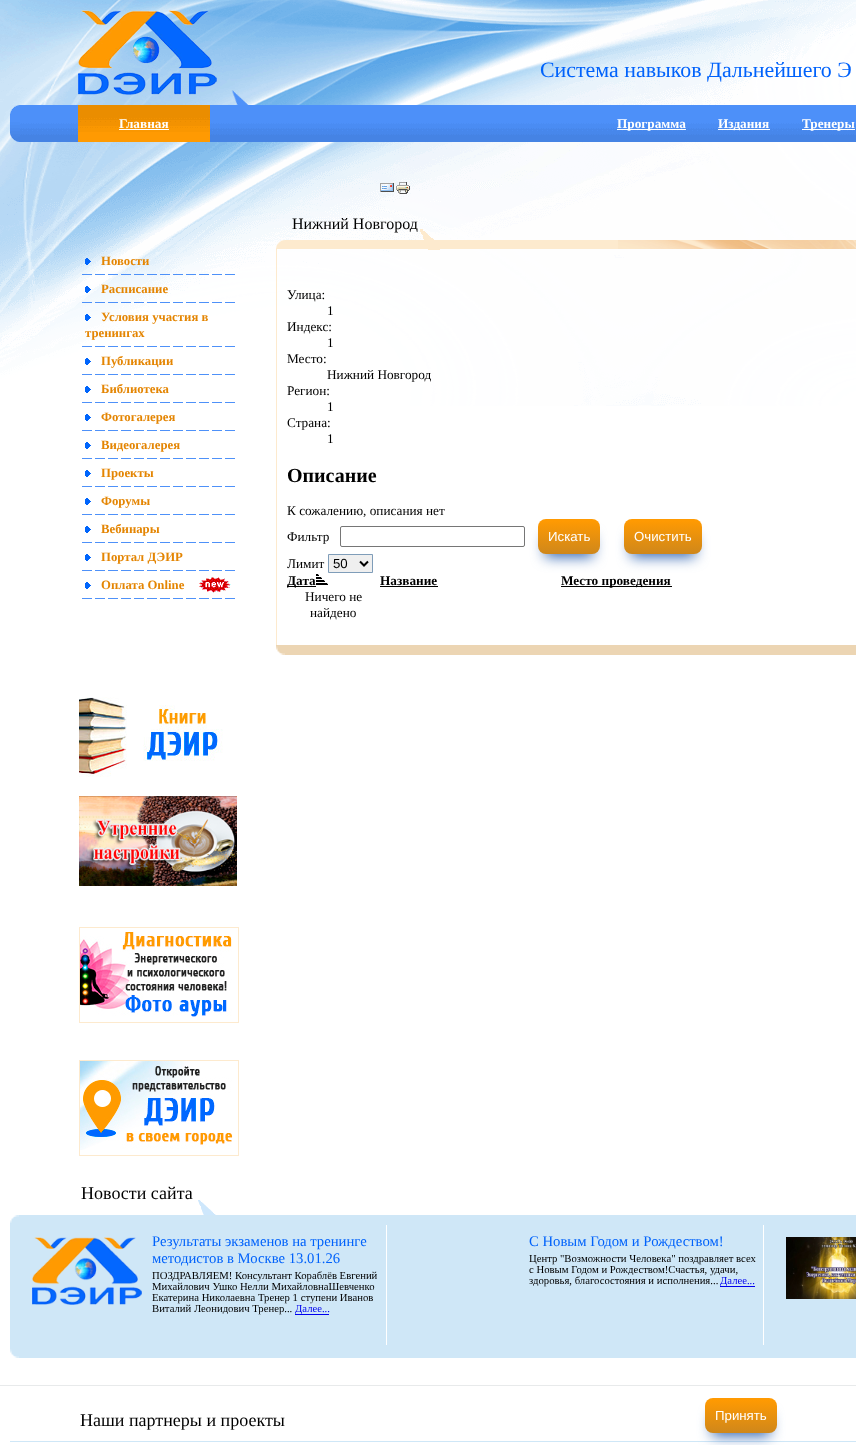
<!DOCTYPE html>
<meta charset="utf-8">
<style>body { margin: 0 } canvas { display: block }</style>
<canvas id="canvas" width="856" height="1445"></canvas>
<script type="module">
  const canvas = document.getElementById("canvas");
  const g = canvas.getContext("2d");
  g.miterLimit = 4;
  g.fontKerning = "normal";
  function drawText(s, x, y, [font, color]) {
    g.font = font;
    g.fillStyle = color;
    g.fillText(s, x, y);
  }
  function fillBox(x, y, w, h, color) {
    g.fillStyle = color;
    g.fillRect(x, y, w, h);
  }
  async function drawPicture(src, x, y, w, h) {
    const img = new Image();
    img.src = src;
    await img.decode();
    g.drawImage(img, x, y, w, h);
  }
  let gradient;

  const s1 = ["21.9px Liberation Serif", "#0062FB"];
  const s2 = ["bold 13.25px Liberation Serif", "#FFFFFF"];
  const s3 = ["bold 12.75px Liberation Serif", "#E48502"];
  const s4 = ["16px Liberation Serif", "#000000"];
  const s5 = ["13.25px Liberation Serif", "#000000"];
  const s6 = ["bold 20px Liberation Serif", "#000000"];
  const s7 = ["13.25px Liberation Sans", "#FFFFFF"];
  const s8 = ["13.25px Liberation Sans", "#000000"];
  const s9 = ["bold 13.25px Liberation Serif", "#000000"];
  const s10 = ["18px Liberation Serif", "#000000"];
  const s11 = ["14.7px Liberation Serif", "#0062FB"];
  const s12 = ["10.7px Liberation Serif", "#000000"];
  const s13 = ["10.7px Liberation Serif", "#0000EE"];

  fillBox(0, 0, 856, 1445, "#FFFFFF");
  await drawPicture("pic1.png", 0, 0, 856, 406);
  await drawPicture("pic2.png", 78, 10, 139, 85);
  drawText("Система навыков Дальнейшего Э", 540, 77, s1);
  await drawPicture("pic3.png", 231, 90, 18, 15);
  await drawPicture("pic4.png", 10, 105, 10, 37);
  await drawPicture("pic5.png", 20, 105, 836, 37);
  await drawPicture("pic6.png", 78, 105, 132, 37);
  drawText("Главная", 119, 128, s2);
  fillBox(119, 129, 50, 1, "#FFFFFF");
  fillBox(617, 129, 69, 1, "#FFFFFF");
  drawText("Программа", 617, 128, s2);
  fillBox(718, 129, 52, 1, "#FFFFFF");
  drawText("Издания", 718, 128, s2);
  fillBox(802, 129, 53, 1, "#FFFFFF");
  drawText("Тренеры", 802, 128, s2);
  await drawPicture("pic7.png", 82, 274, 153, 1);
  await drawPicture("pic8.png", 85, 258, 6, 7);
  drawText("Новости", 101, 265, s3);
  await drawPicture("pic9.png", 82, 302, 153, 1);
  await drawPicture("pic10.png", 85, 286, 6, 7);
  drawText("Расписание", 101, 293, s3);
  await drawPicture("pic11.png", 82, 346, 153, 1);
  await drawPicture("pic12.png", 85, 314, 6, 7);
  drawText("Условия участия в", 101, 321, s3);
  drawText("тренингах", 85, 337, s3);
  await drawPicture("pic13.png", 82, 374, 153, 1);
  await drawPicture("pic14.png", 85, 358, 6, 7);
  drawText("Публикации", 101, 365, s3);
  await drawPicture("pic13.png", 82, 402, 153, 1);
  await drawPicture("pic14.png", 85, 386, 6, 7);
  drawText("Библиотека", 101, 393, s3);
  await drawPicture("pic13.png", 82, 430, 153, 1);
  await drawPicture("pic14.png", 85, 414, 6, 7);
  drawText("Фотогалерея", 101, 421, s3);
  await drawPicture("pic13.png", 82, 458, 153, 1);
  await drawPicture("pic14.png", 85, 442, 6, 7);
  drawText("Видеогалерея", 101, 449, s3);
  await drawPicture("pic13.png", 82, 486, 153, 1);
  await drawPicture("pic14.png", 85, 470, 6, 7);
  drawText("Проекты", 101, 477, s3);
  await drawPicture("pic13.png", 82, 514, 153, 1);
  await drawPicture("pic14.png", 85, 498, 6, 7);
  drawText("Форумы", 101, 505, s3);
  await drawPicture("pic13.png", 82, 542, 153, 1);
  await drawPicture("pic14.png", 85, 526, 6, 7);
  drawText("Вебинары", 101, 533, s3);
  await drawPicture("pic13.png", 82, 570, 153, 1);
  await drawPicture("pic14.png", 85, 554, 6, 7);
  drawText("Портал ДЭИР", 101, 561, s3);
  await drawPicture("pic13.png", 82, 598, 153, 1);
  await drawPicture("pic14.png", 85, 582, 6, 7);
  drawText("Оплата Online", 101, 589, s3);
  await drawPicture("pic15.png", 199, 577, 32, 16);
  await drawPicture("pic16.png", 79, 697, 144, 80);
  await drawPicture("pic17.png", 79, 796, 158, 90);
  g.strokeStyle = "#FDEACE";
  g.strokeRect(79.5, 927.5, 159, 95);
  await drawPicture("pic18.png", 80, 932, 152, 85);
  g.strokeRect(79.5, 1060.5, 159, 95);
  await drawPicture("pic19.png", 80, 1061, 153, 89);
  await drawPicture("pic20.png", 380, 183, 14, 9);
  await drawPicture("pic21.png", 396, 182, 14, 12);
  drawText("Нижний Новгород", 292, 229, s4);
  await drawPicture("pic22.png", 420, 229, 20, 21);
  fillBox(276, 248, 1, 397, "#FDEACE");
  await drawPicture("pic23.png", 276, 240, 9, 9);
  fillBox(285, 240, 333, 9, "#FDEACE");
  await drawPicture("pic24.png", 618, 240, 238, 9);
  drawText("Улица:", 287, 299, s5);
  drawText("1", 327, 315, s5);
  drawText("Индекс:", 287, 331, s5);
  drawText("1", 327, 347, s5);
  drawText("Место:", 287, 363, s5);
  drawText("Нижний Новгород", 327, 379, s5);
  drawText("Регион:", 287, 395, s5);
  drawText("1", 327, 411, s5);
  drawText("Страна:", 287, 427, s5);
  drawText("1", 327, 443, s5);
  drawText("Описание", 287, 482, s6);
  drawText("К сожалению, описания нет", 287, 515, s5);
  drawText("Фильтр", 287, 541, s5);
  g.beginPath();
  g.roundRect(340.5, 526.5, 184, 20, 1.5);
  g.strokeStyle = "#767676";
  g.stroke();
  g.fillStyle = "#3467B3";
  g.filter = "blur(7px)";
  g.beginPath();
  g.roundRect(545, 536, 48, 21, 1);
  g.fill();
  g.filter = "none";
  gradient = g.createLinearGradient(569, 519, 569, 554);
  gradient.addColorStop(0.05, "#FF9A02");
  gradient.addColorStop(1, "#CF871B");
  g.fillStyle = gradient;
  g.beginPath();
  g.roundRect(538, 519, 62, 35, 8);
  g.fill();
  drawText("Искать", 548, 541, s7);
  g.fillStyle = "#3467B3";
  g.filter = "blur(7px)";
  g.beginPath();
  g.roundRect(631, 536, 64, 21, 1);
  g.fill();
  g.filter = "none";
  gradient = g.createLinearGradient(663, 519, 663, 554);
  gradient.addColorStop(0.05, "#FF9A02");
  gradient.addColorStop(1, "#CF871B");
  g.fillStyle = gradient;
  g.beginPath();
  g.roundRect(624, 519, 78, 35, 8);
  g.fill();
  drawText("Очистить", 634, 541, s7);
  drawText("Лимит", 287, 568, s5);
  g.fillStyle = "#EFEFEF";
  g.beginPath();
  g.rect(328.5, 554.5, 44, 18);
  g.fill();
  g.strokeStyle = "#7F9DB9";
  g.stroke();
  g.beginPath();
  g.moveTo(360, 561.5);
  g.lineTo(364, 565.5);
  g.lineTo(368, 561.5);
  g.strokeStyle = "#000000";
  g.lineWidth = 2;
  g.stroke();
  drawText("50", 333, 568, s8);
  fillBox(287, 586, 29, 1, "#000000");
  drawText("Дата", 287, 585, s9);
  await drawPicture("pic25.png", 316, 574, 12, 11);
  drawText("Название", 380, 585, s9);
  fillBox(380, 586, 58, 1, "#000000");
  fillBox(561, 586, 111, 1, "#000000");
  drawText("Место проведения", 561, 585, s9);
  drawText("Ничего не", 305, 601, s5);
  drawText("найдено", 310, 617, s5);
  fillBox(276, 645, 580, 10, "#ECD5B3");
  await drawPicture("pic26.png", 276, 646, 9, 9);
  drawText("Новости сайта", 81, 1199, s10);
  await drawPicture("pic27.png", 198, 1200, 18, 15);
  fillBox(10, 1215, 846, 143, "#CFE7F7");
  await drawPicture("pic28.png", 10, 1215, 9, 8);
  fillBox(386, 1225, 1, 120, "#FFFFFF");
  await drawPicture("pic29.png", 32, 1237, 110, 68);
  drawText("Результаты экзаменов на тренинге", 152, 1246, s11);
  drawText("методистов в Москве 13.01.26", 152, 1263, s11);
  drawText("ПОЗДРАВЛЯЕМ! Консультант Кораблёв Евгений", 152, 1279, s12);
  drawText("Михайлович Ушко Нелли МихайловнаШевченко", 152, 1290, s12);
  drawText("Екатерина Николаевна Тренер 1 ступени Иванов", 152, 1301, s12);
  drawText("Виталий Леонидович Тренер...", 152, 1312, s12);
  fillBox(295, 1314, 34, 1, "#0000EE");
  drawText("Далее...", 295, 1312, s13);
  fillBox(763, 1225, 1, 120, "#FFFFFF");
  drawText("С Новым Годом и Рождеством!", 529, 1246, s11);
  drawText("Центр \"Возможности Человека\" поздравляет всех", 529, 1262, s12);
  drawText("с Новым Годом и Рождеством!Счастья, удачи,", 529, 1273, s12);
  drawText("здоровья, благосостояния и исполнения...", 529, 1284, s12);
  fillBox(720, 1286, 35, 1, "#0000EE");
  drawText("Далее...", 720, 1284, s13);
  await drawPicture("pic30.png", 786, 1237, 70, 62);
  await drawPicture("pic31.png", 10, 1349, 9, 9);
  fillBox(10, 1441, 846, 1, "#CFE7F7");
  drawText("Наши партнеры и проекты", 80, 1426, s10);
  fillBox(0, 1385, 856, 1, "#E8EAEB");
  g.fillStyle = "#3467B3";
  g.filter = "blur(7px)";
  g.beginPath();
  g.roundRect(712, 1415, 58, 21, 1);
  g.fill();
  g.filter = "none";
  gradient = g.createLinearGradient(741, 1398, 741, 1433);
  gradient.addColorStop(0.05, "#FF9A02");
  gradient.addColorStop(1, "#CF871B");
  g.fillStyle = gradient;
  g.beginPath();
  g.roundRect(705, 1398, 72, 35, 8);
  g.fill();
  drawText("Принять", 715, 1420, s7);
</script>
